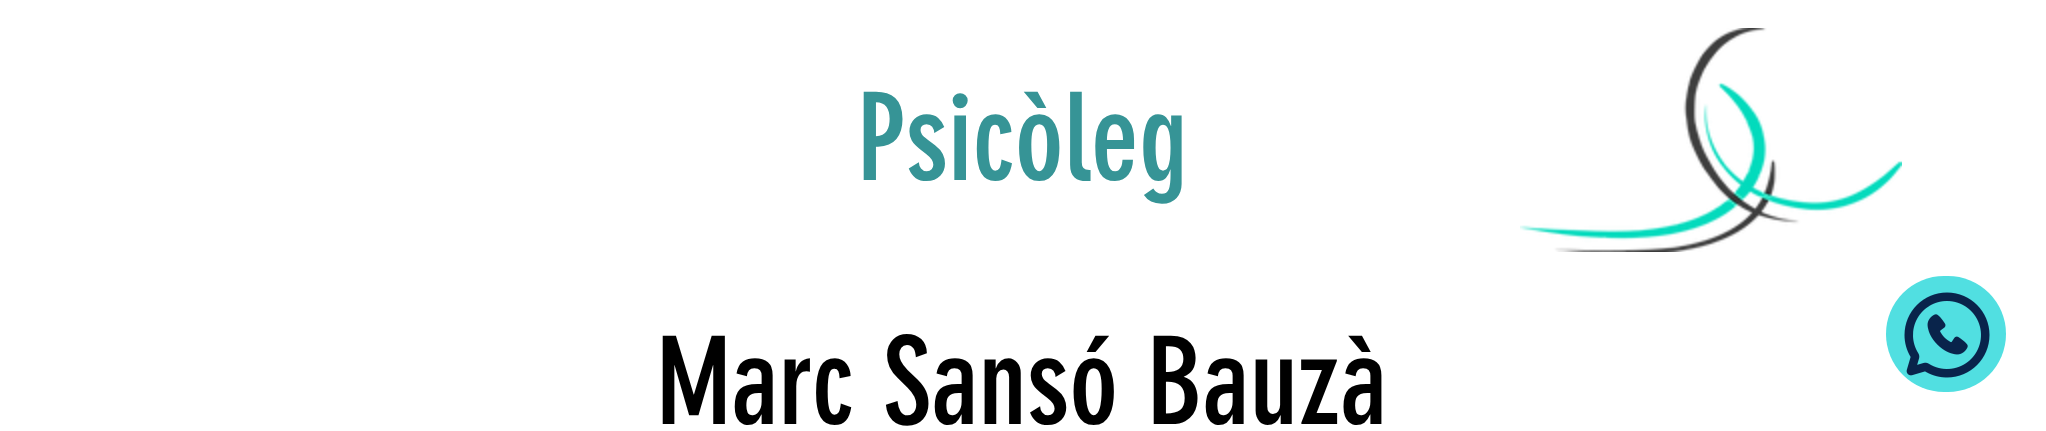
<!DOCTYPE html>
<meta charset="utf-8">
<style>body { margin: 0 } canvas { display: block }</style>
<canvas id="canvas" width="2046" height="431"></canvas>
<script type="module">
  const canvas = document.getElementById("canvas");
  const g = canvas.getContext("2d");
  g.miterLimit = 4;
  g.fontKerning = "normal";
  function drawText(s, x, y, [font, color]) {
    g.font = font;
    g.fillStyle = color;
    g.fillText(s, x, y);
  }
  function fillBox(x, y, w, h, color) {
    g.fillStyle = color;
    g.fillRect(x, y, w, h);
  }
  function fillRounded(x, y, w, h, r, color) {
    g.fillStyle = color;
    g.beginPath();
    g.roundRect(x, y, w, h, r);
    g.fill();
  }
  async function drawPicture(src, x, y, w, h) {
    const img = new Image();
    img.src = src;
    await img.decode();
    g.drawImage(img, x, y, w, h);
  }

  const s1 = ["120px 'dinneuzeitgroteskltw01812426'", "#369496"];
  const s2 = ["120px 'dinneuzeitgroteskltw01812426'", "#000000"];

  fillBox(0, 0, 2046, 431, "#FFFFFF");
  drawText("Psicòleg", 857, 180, s1);
  await drawPicture("pic1.png", 1520, 28, 382, 224);
  drawText("Marc Sansó Bauzà", 656, 424, s2);
  fillRounded(1886, 276, 120, 116, 58, "#51DFE1");
  await drawPicture("pic2.png", 1904, 292, 86, 86);
</script>
